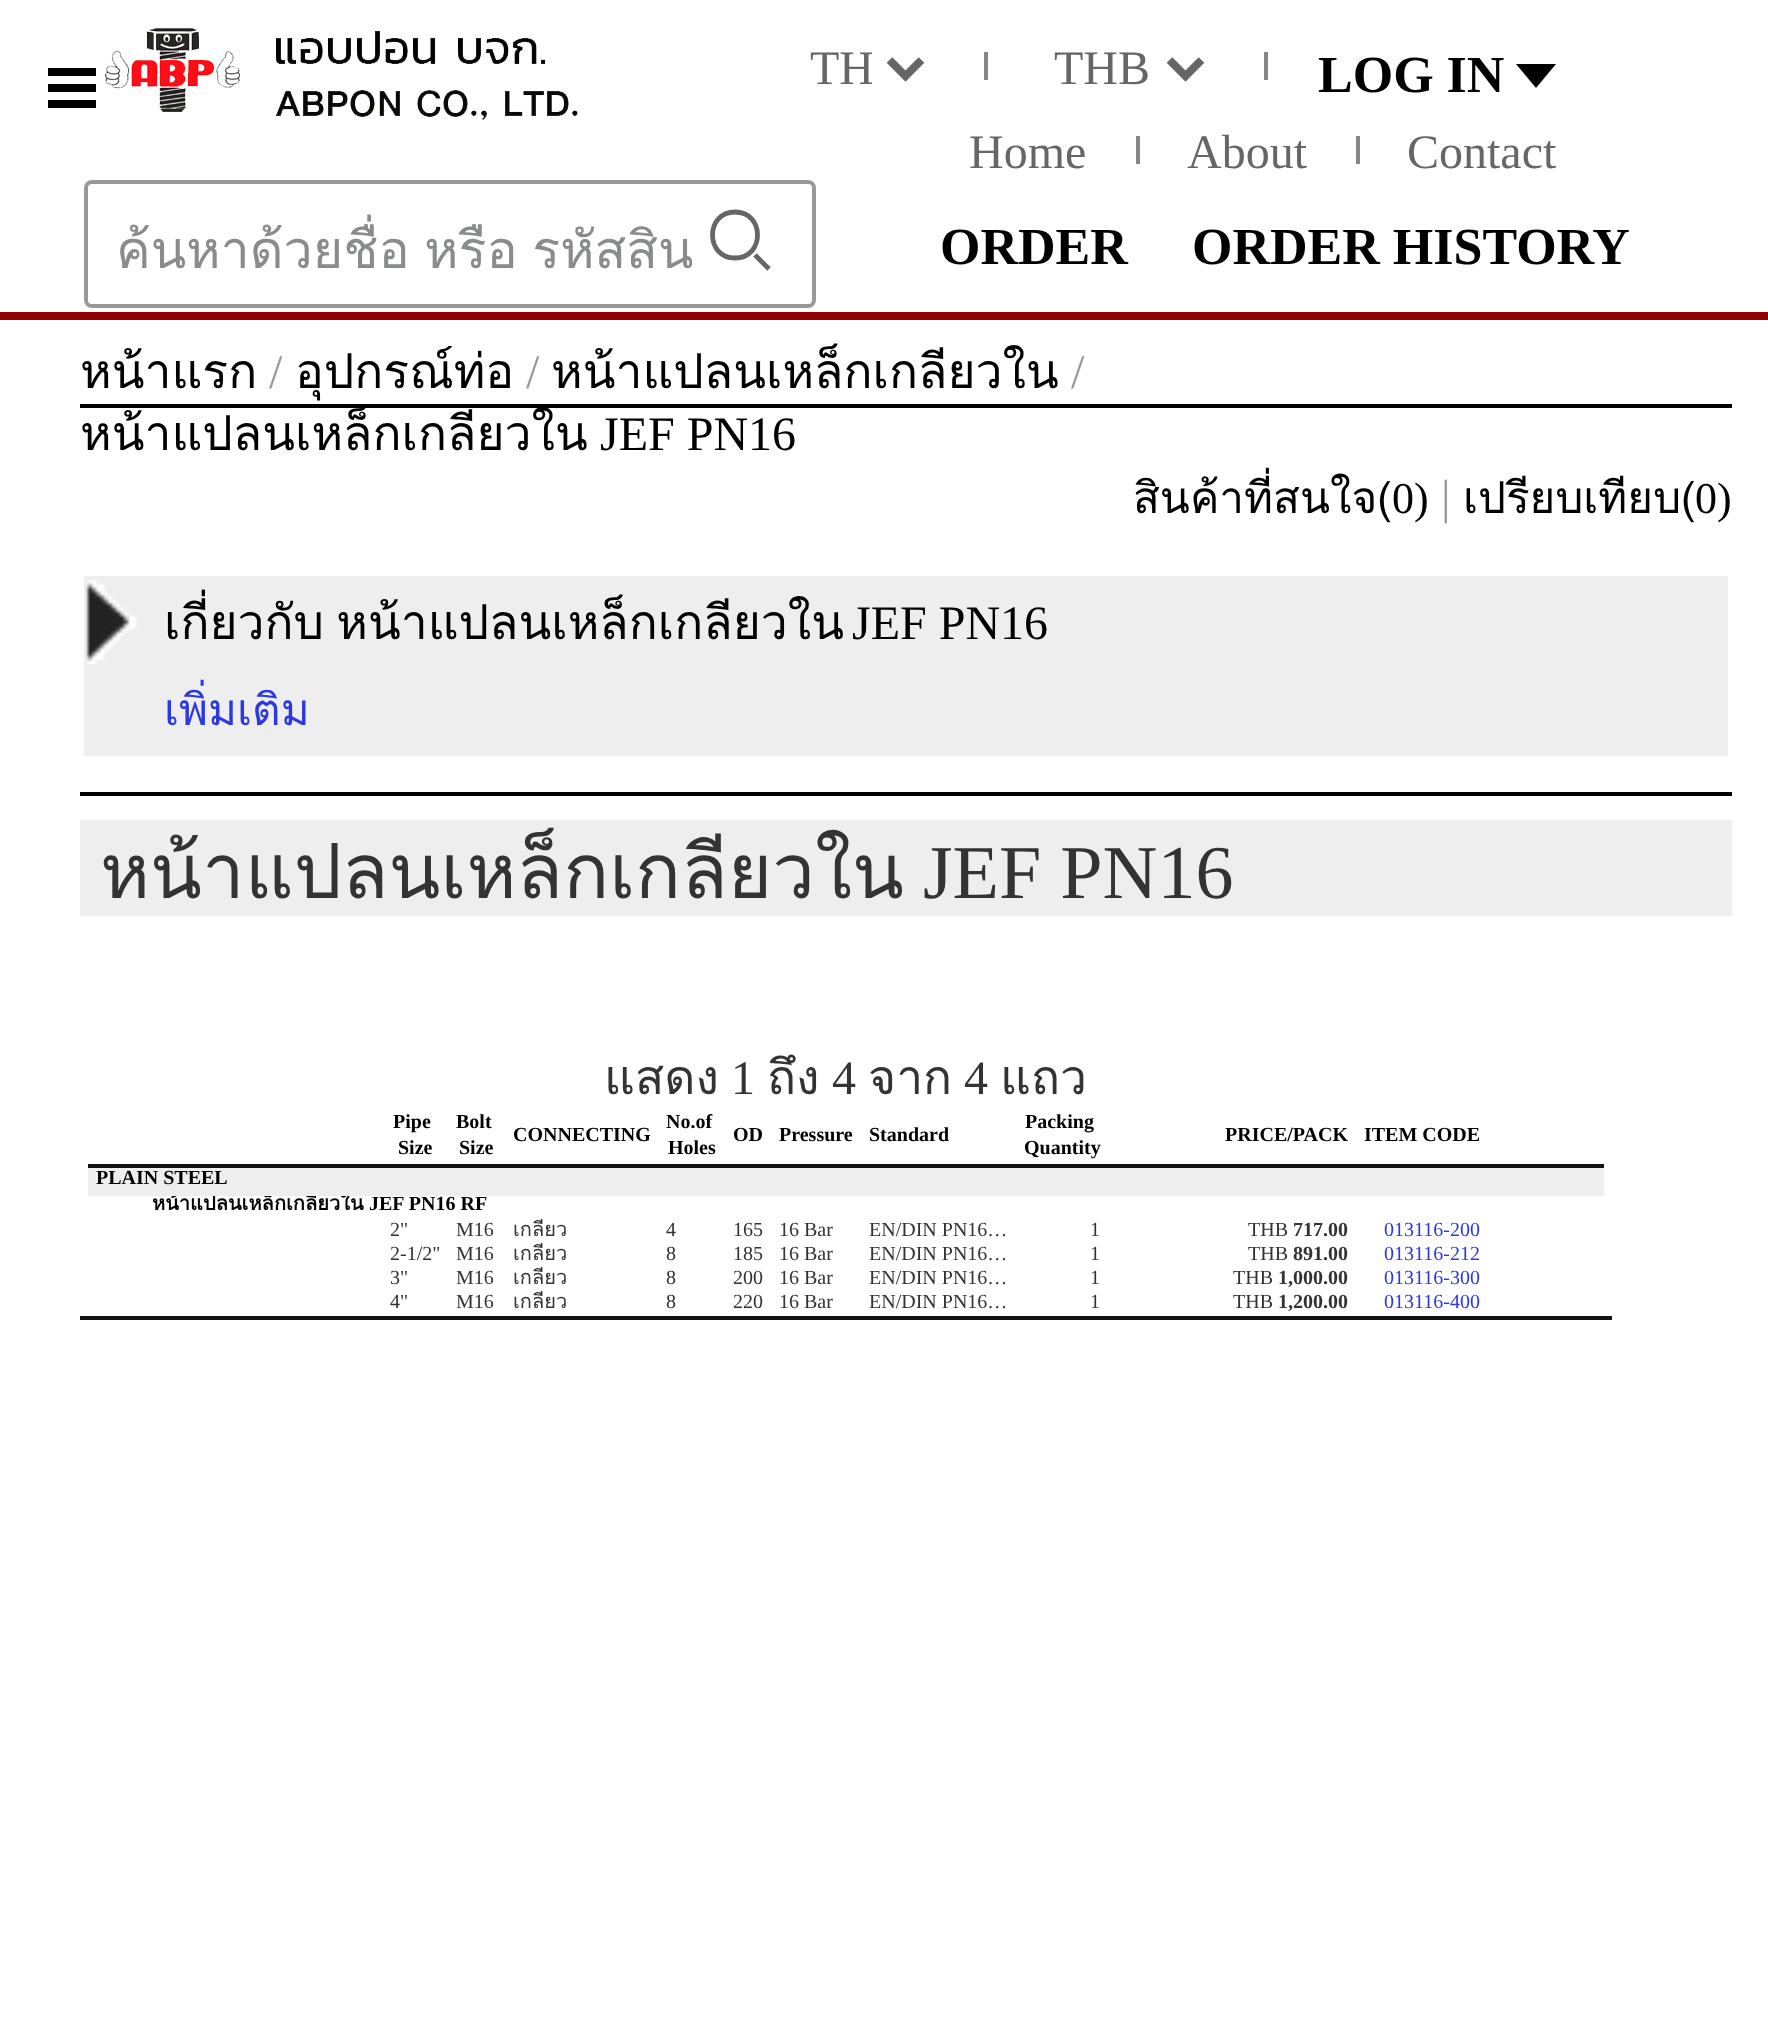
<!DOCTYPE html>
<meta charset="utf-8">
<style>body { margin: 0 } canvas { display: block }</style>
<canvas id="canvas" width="1768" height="2028"></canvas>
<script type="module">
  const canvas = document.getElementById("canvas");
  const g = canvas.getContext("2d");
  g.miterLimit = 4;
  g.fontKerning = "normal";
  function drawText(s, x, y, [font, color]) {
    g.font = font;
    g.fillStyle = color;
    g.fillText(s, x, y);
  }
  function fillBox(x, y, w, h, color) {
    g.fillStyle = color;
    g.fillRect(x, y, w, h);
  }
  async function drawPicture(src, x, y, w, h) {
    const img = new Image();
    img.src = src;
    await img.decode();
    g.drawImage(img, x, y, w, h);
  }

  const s1 = ["48px Liberation Serif", "#666666"];
  const s2 = ["bold 52px Liberation Serif", "#000000"];
  const s3 = ["52px Loma", "#8A8B8C"];
  const s4 = ["48px Loma", "#000000"];
  const s5 = ["48px Liberation Serif", "#999999"];
  const s6 = ["48px Liberation Serif", "#000000"];
  const s7 = ["44px Loma", "#000000"];
  const s8 = ["44px Liberation Serif", "#000000"];
  const s9 = ["44px Loma", "#2C38E2"];
  const s10 = ["76px Loma", "#333333"];
  const s11 = ["76px Liberation Serif", "#333333"];
  const s12 = ["48px Loma", "#333333"];
  const s13 = ["48px Liberation Serif", "#333333"];
  const s14 = ["bold 20px Liberation Serif", "#000000"];
  const s15 = ["bold 20px Loma", "#000000"];
  const s16 = ["20px Loma", "#333333"];
  const s17 = ["20px Liberation Serif", "#333333"];
  const s18 = ["bold 20px Liberation Serif", "#333333"];
  const s19 = ["20px Liberation Serif", "#2C38E2"];

  fillBox(0, 0, 1768, 2028, "#FFFFFF");
  fillBox(0, 312, 1768, 8, "#8F0000");
  fillBox(48, 68, 48, 8, "#000000");
  fillBox(48, 84, 48, 8, "#000000");
  fillBox(48, 100, 48, 8, "#000000");
  await drawPicture("pic1.png", 105, 28, 473, 92);
  g.beginPath();
  g.moveTo(889.5, 60);
  g.lineTo(905.5, 76);
  g.lineTo(921.5, 60);
  g.strokeStyle = "#666666";
  g.lineWidth = 8;
  g.stroke();
  g.save();
  g.beginPath();
  g.rect(808, 36, 64, 64);
  g.clip();
  drawText("TH", 810, 84, s1);
  g.restore();
  fillBox(984, 52, 4, 28, "#878787");
  g.beginPath();
  g.moveTo(1169.5, 60);
  g.lineTo(1185.5, 76);
  g.lineTo(1201.5, 60);
  g.stroke();
  drawText("THB", 1054, 84, s1);
  fillBox(1264, 52, 4, 28, "#878787");
  drawText("LOG IN", 1318, 92, s2);
  g.beginPath();
  g.moveTo(1516, 64);
  g.lineTo(1536, 88);
  g.lineTo(1556, 64);
  g.closePath();
  g.fill();
  drawText("Home", 969, 168, s1);
  fillBox(1136, 136, 4, 28, "#878787");
  drawText("About", 1187, 168, s1);
  fillBox(1356, 136, 4, 28, "#878787");
  drawText("Contact", 1407, 168, s1);
  g.beginPath();
  g.roundRect(86, 182, 728, 124, 6);
  g.strokeStyle = "#999999";
  g.lineWidth = 4;
  g.stroke();
  g.save();
  g.beginPath();
  g.rect(108, 208, 584, 84);
  g.clip();
  g.wordSpacing = "-3px";
  drawText("ค้นหาด้วยชื่อ หรือ รหัสสิน", 116, 268, s3);
  g.restore();
  g.beginPath();
  g.moveTo(755, 255);
  g.lineTo(769, 269);
  g.moveTo(735, 258);
  g.bezierCurveTo(765, 258, 765, 212, 735, 212);
  g.bezierCurveTo(705, 212, 705, 258, 735, 258);
  g.closePath();
  g.strokeStyle = "#666666";
  g.lineWidth = 4.8;
  g.stroke();
  drawText("ORDER", 940, 264, s2);
  drawText("ORDER HISTORY", 1192, 264, s2);
  fillBox(80, 404, 1652, 4, "#000000");
  drawText("หน้าแรก", 80, 388, s4);
  drawText("/", 269, 388, s5);
  drawText("อุปกรณ์ท่อ", 295, 388, s4);
  drawText("/", 526, 388, s5);
  drawText("หน้าแปลนเหล็กเกลียวใน", 551, 388, s4);
  drawText("/", 1071, 388, s5);
  drawText("หน้าแปลนเหล็กเกลียวใน", 80, 450, s4);
  drawText("JEF PN16", 600, 450, s6);
  drawText("สินค้าที่สนใจ(", 1133, 513, s7);
  drawText("0)", 1392, 513, s8);
  drawText("|", 1441, 513, s5);
  drawText("เปรียบเทียบ(", 1463, 513, s7);
  drawText("0)", 1695, 513, s8);
  fillBox(84, 576, 1644, 180, "#EEEEEE");
  await drawPicture("pic2.png", 86, 579, 51, 85);
  g.wordSpacing = "-4px";
  drawText("เกี่ยวกับ หน้าแปลนเหล็กเกลียวใน", 164, 639, s4);
  g.wordSpacing = "0px";
  drawText("JEF PN16", 852, 639, s6);
  drawText("เพิ่มเติม", 164, 725, s9);
  fillBox(80, 792, 1652, 4, "#000000");
  fillBox(80, 820, 1652, 96, "#EEEEEE");
  drawText("หน้าแปลนเหล็กเกลียวใน", 100, 898, s10);
  drawText("JEF PN16", 923, 898, s11);
  drawText("แสดง", 604, 1094, s12);
  drawText("1", 731, 1094, s13);
  drawText("ถึง", 767, 1094, s12);
  drawText("4", 832, 1094, s13);
  drawText("จาก", 868, 1094, s12);
  drawText("4", 964, 1094, s13);
  drawText("แถว", 1000, 1094, s12);
  fillBox(80, 1316, 1532, 4, "#111111");
  drawText("Pipe", 393, 1128, s14);
  drawText("Size", 398, 1154, s14);
  drawText("Bolt", 456, 1128, s14);
  drawText("Size", 459, 1154, s14);
  drawText("CONNECTING", 513, 1141, s14);
  drawText("No.of", 666, 1128, s14);
  drawText("Holes", 668, 1154, s14);
  drawText("OD", 733, 1141, s14);
  drawText("Pressure", 779, 1141, s14);
  drawText("Standard", 869, 1141, s14);
  drawText("Packing", 1025, 1128, s14);
  drawText("Quantity", 1024, 1154, s14);
  drawText("PRICE/PACK", 1225, 1141, s14);
  drawText("ITEM CODE", 1364, 1141, s14);
  fillBox(88, 1164, 1516, 4, "#111111");
  drawText("หน้าแปลนเหล็กเกลียวใน", 152, 1210, s15);
  fillBox(88, 1168, 1516, 28, "#EEEEEE");
  drawText("PLAIN STEEL", 96, 1184, s14);
  drawText("เกลียว", 513, 1236, s16);
  fillBox(528, 1219, 2, 1, "#FFFFFF");
  drawText("JEF PN16 RF", 369, 1210, s14);
  drawText("2\"", 390, 1236, s17);
  drawText("M16", 456, 1236, s17);
  drawText("4", 666, 1236, s17);
  drawText("165", 733, 1236, s17);
  drawText("16 Bar", 779, 1236, s17);
  drawText("EN/DIN PN16…", 869, 1236, s17);
  drawText("1", 1090, 1236, s17);
  drawText("THB", 1248, 1236, s17);
  drawText("717.00", 1293, 1236, s18);
  drawText("013116-200", 1384, 1236, s19);
  drawText("2-1/2\"", 390, 1260, s17);
  drawText("M16", 456, 1260, s17);
  drawText("เกลียว", 513, 1260, s16);
  drawText("8", 666, 1260, s17);
  drawText("185", 733, 1260, s17);
  drawText("16 Bar", 779, 1260, s17);
  drawText("EN/DIN PN16…", 869, 1260, s17);
  drawText("1", 1090, 1260, s17);
  drawText("THB", 1248, 1260, s17);
  drawText("891.00", 1293, 1260, s18);
  drawText("013116-212", 1384, 1260, s19);
  drawText("3\"", 390, 1284, s17);
  drawText("M16", 456, 1284, s17);
  drawText("เกลียว", 513, 1284, s16);
  drawText("8", 666, 1284, s17);
  drawText("200", 733, 1284, s17);
  drawText("16 Bar", 779, 1284, s17);
  drawText("EN/DIN PN16…", 869, 1284, s17);
  drawText("1", 1090, 1284, s17);
  drawText("THB", 1233, 1284, s17);
  drawText("1,000.00", 1278, 1284, s18);
  drawText("013116-300", 1384, 1284, s19);
  drawText("4\"", 390, 1308, s17);
  drawText("M16", 456, 1308, s17);
  drawText("เกลียว", 513, 1308, s16);
  drawText("8", 666, 1308, s17);
  drawText("220", 733, 1308, s17);
  drawText("16 Bar", 779, 1308, s17);
  drawText("EN/DIN PN16…", 869, 1308, s17);
  drawText("1", 1090, 1308, s17);
  drawText("THB", 1233, 1308, s17);
  drawText("1,200.00", 1278, 1308, s18);
  drawText("013116-400", 1384, 1308, s19);
</script>
